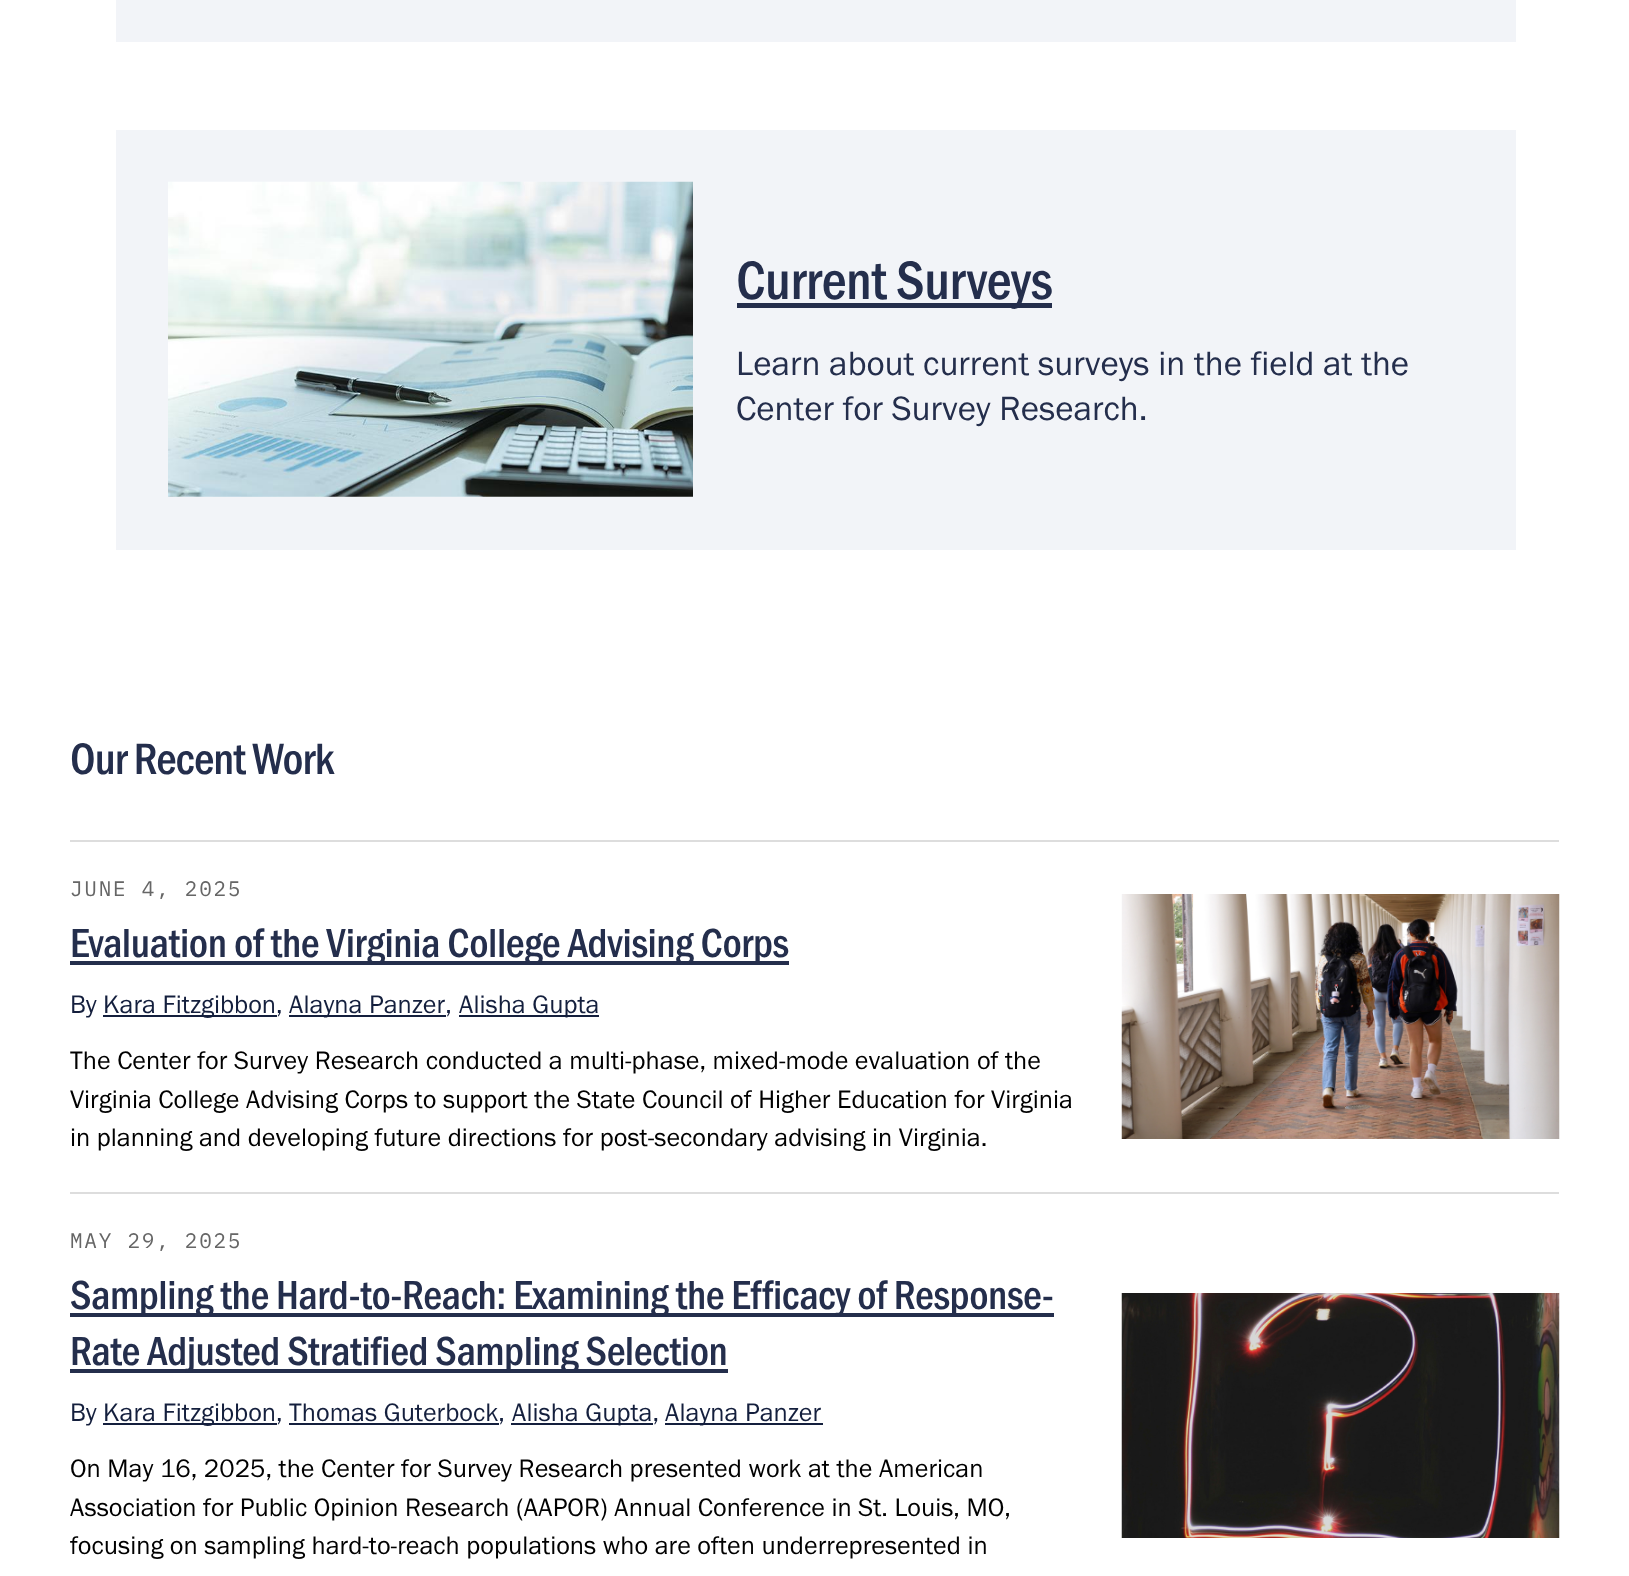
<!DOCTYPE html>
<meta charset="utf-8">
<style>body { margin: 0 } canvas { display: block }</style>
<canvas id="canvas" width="1629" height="1576"></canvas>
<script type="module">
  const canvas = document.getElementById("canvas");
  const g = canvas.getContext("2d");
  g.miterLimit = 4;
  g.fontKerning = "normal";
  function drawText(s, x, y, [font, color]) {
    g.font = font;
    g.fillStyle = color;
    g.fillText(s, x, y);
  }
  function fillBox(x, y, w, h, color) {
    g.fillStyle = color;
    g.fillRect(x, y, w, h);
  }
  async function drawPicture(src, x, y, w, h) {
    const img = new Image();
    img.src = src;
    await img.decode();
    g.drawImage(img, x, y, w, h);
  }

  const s1 = ["500 56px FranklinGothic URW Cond", "#242E4C"];
  const s2 = ["35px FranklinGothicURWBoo", "#242E4C"];
  const s3 = ["500 45.5px FranklinGothic URW Cond", "#242E4C"];
  const s4 = ["21px IBM Plex Mono", "#666666"];
  const s5 = ["500 42px FranklinGothic URW Cond", "#242E4C"];
  const s6 = ["26.25px FranklinGothicURWBoo", "#141F3D"];
  const s7 = ["26.25px FranklinGothicURWBoo", "#000000"];

  fillBox(0, 0, 1629, 1576, "#FFFFFF");
  fillBox(116, 0, 1400, 42, "#F2F4F8");
  fillBox(116, 130, 1400, 420, "#F2F4F8");
  await drawPicture("pic1.png", 168, 181, 525, 316);
  fillBox(737, 303, 315, 5, "#242E4C");
  g.letterSpacing = "-0.45px";
  drawText("Current Surveys", 736, 299, s1);
  g.letterSpacing = "0px";
  drawText("Learn about current surveys in the field at the", 736, 375, s2);
  drawText("Center for Survey Research.", 736, 420, s2);
  g.letterSpacing = "-0.9px";
  drawText("Our Recent Work", 70, 774, s3);
  fillBox(70, 840, 1489, 2, "#DDDDDD");
  g.letterSpacing = "1.75px";
  drawText("JUNE 4, 2025", 70, 896, s4);
  fillBox(70, 961, 719, 4, "#242E4C");
  g.letterSpacing = "-0.45px";
  drawText("Evaluation of the Virginia College Advising Corps", 70, 957, s5);
  g.letterSpacing = "0px";
  drawText("By", 70, 1013, s6);
  fillBox(103, 1015, 174, 2, "#141F3D");
  drawText("Kara Fitzgibbon,", 103, 1013, s6);
  fillBox(289, 1015, 157, 2, "#141F3D");
  drawText("Alayna Panzer,", 289, 1013, s6);
  fillBox(459, 1015, 140, 2, "#141F3D");
  drawText("Alisha Gupta", 459, 1013, s6);
  drawText("The Center for Survey Research conducted a multi-phase, mixed-mode evaluation of the", 70, 1069, s7);
  drawText("Virginia College Advising Corps to support the State Council of Higher Education for Virginia", 70, 1108, s7);
  drawText("in planning and developing future directions for post-secondary advising in Virginia.", 70, 1146, s7);
  await drawPicture("pic2.png", 1121, 894, 439, 245);
  fillBox(70, 1192, 1489, 2, "#DDDDDD");
  g.letterSpacing = "1.75px";
  drawText("MAY 29, 2025", 70, 1248, s4);
  fillBox(70, 1313, 984, 4, "#242E4C");
  g.letterSpacing = "-0.45px";
  drawText("Sampling the Hard-to-Reach: Examining the Efficacy of Response-", 70, 1309, s5);
  fillBox(70, 1369, 658, 4, "#242E4C");
  drawText("Rate Adjusted Stratified Sampling Selection", 70, 1365, s5);
  g.letterSpacing = "0px";
  drawText("By", 70, 1421, s6);
  fillBox(103, 1423, 174, 2, "#141F3D");
  drawText("Kara Fitzgibbon, Thomas Guterbock,", 103, 1421, s6);
  fillBox(511, 1423, 142, 2, "#141F3D");
  drawText("Alisha Gupta,", 512, 1421, s6);
  fillBox(665, 1423, 158, 2, "#141F3D");
  drawText("Alayna Panzer", 665, 1421, s6);
  fillBox(289, 1423, 210, 2, "#141F3D");
  drawText("On May 16, 2025, the Center for Survey Research presented work at the American", 70, 1477, s7);
  drawText("Association for Public Opinion Research (AAPOR) Annual Conference in St. Louis, MO,", 70, 1516, s7);
  drawText("focusing on sampling hard-to-reach populations who are often underrepresented in", 70, 1554, s7);
  await drawPicture("pic3.png", 1121, 1293, 439, 245);
</script>
